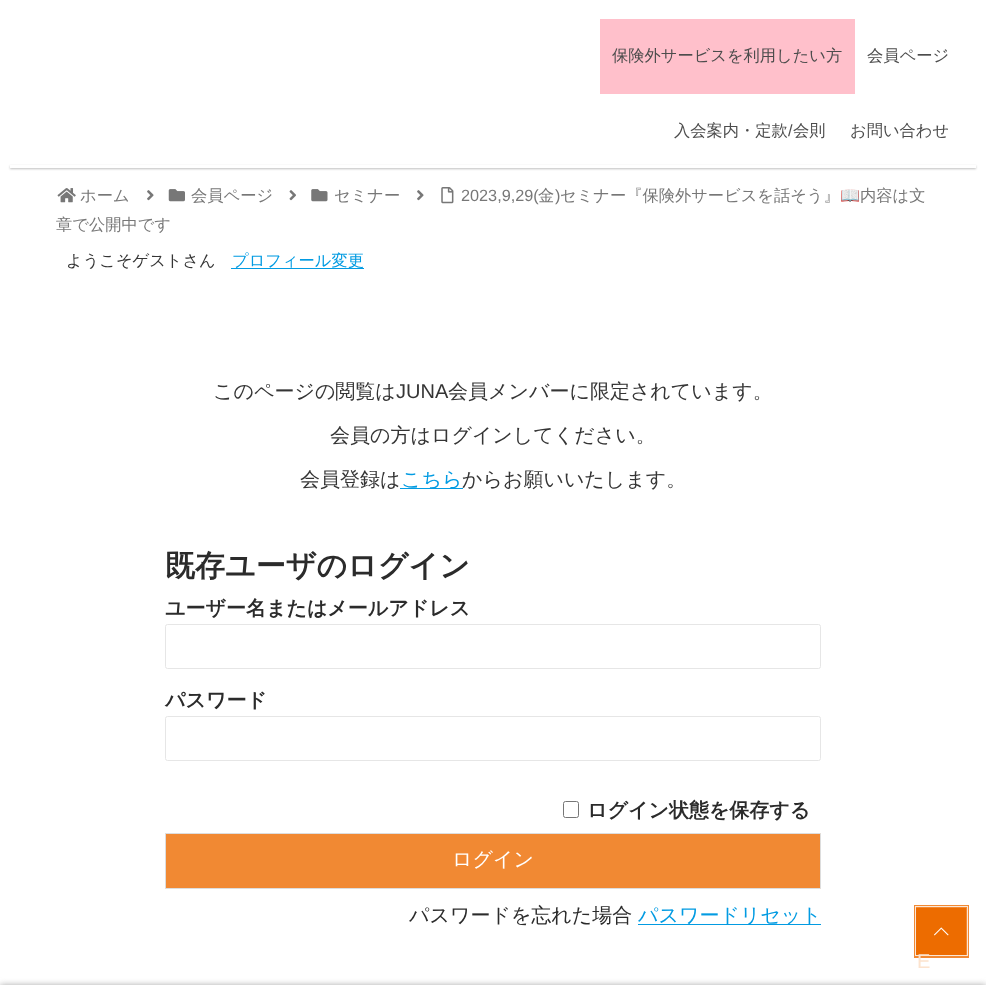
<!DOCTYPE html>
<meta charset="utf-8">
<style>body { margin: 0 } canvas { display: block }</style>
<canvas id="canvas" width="986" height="985"></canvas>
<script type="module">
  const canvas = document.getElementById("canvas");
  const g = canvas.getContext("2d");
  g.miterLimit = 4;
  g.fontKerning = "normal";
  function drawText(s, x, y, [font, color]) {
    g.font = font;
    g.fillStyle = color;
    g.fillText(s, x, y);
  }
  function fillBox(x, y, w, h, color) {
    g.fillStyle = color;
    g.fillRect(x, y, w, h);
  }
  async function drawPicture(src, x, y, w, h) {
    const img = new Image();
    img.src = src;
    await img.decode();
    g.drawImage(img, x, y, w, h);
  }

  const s1 = ["500 16.25px WenQuanYi Zen Hei", "#4C4C4C"];
  const s2 = ["16.25px Liberation Sans", "#4C4C4C"];
  const s3 = ["16.25px Liberation Sans", "#777777"];
  const s4 = ["500 16.25px WenQuanYi Zen Hei", "#777777"];
  const s5 = ["16.25px Noto Color Emoji", "#777777"];
  const s6 = ["500 16.25px WenQuanYi Zen Hei", "#353535"];
  const s7 = ["500 16.25px WenQuanYi Zen Hei", "#029BE2"];
  const s8 = ["500 20px WenQuanYi Zen Hei", "#353535"];
  const s9 = ["20px Liberation Sans", "#353535"];
  const s10 = ["500 20px WenQuanYi Zen Hei", "#029BE2"];
  const s11 = ["bold 30px WenQuanYi Zen Hei", "#2B2B2B"];
  const s12 = ["bold 20px WenQuanYi Zen Hei", "#2B2B2B"];
  const s13 = ["500 20px WenQuanYi Zen Hei", "#FFFFFF"];
  const s14 = ["500 20px WenQuanYi Zen Hei", "#2B2B2B"];
  const s15 = ["20px Liberation Sans", "#FCE3CE"];

  fillBox(0, 0, 986, 985, "#FFFFFF");
  fillBox(600, 19, 255, 75, "#FFC0CB");
  drawText("保険外サービスを利用したい方", 612, 61, s1);
  drawText("会員ページ", 867, 61, s1);
  drawText("入会案内・定款", 674, 136, s1);
  drawText("/", 788, 136, s2);
  drawText("会則", 793, 136, s1);
  drawText("お問い合わせ", 850, 136, s1);
  await drawPicture("pic1.png", 441, 187, 13, 17);
  drawText("2023,9,29(", 461, 201, s3);
  drawText("金", 538, 201, s4);
  drawText(")", 555, 201, s3);
  drawText("セミナー『保険外サービスを話そう』", 560, 201, s4);
  drawText("📖", 840, 201, s5);
  drawText("内容は文", 860, 201, s4);
  drawText("章で公開中です", 56, 230, s4);
  await drawPicture("pic2.png", 57, 188, 19, 15);
  drawText("ホーム", 80, 201, s4);
  await drawPicture("pic3.png", 147, 190, 7, 11);
  await drawPicture("pic4.png", 168, 189, 17, 13);
  drawText("会員ページ", 191, 201, s4);
  await drawPicture("pic5.png", 289, 190, 7, 11);
  await drawPicture("pic6.png", 311, 189, 17, 13);
  drawText("セミナー", 334, 201, s4);
  await drawPicture("pic3.png", 417, 190, 7, 11);
  drawText("ようこそゲストさん", 66, 266, s6);
  fillBox(231, 268, 133, 1, "#029BE2");
  drawText("プロフィール変更", 232, 266, s7);
  g.save();
  g.beginPath();
  g.moveTo(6, 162);
  g.lineTo(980, 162);
  g.lineTo(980, 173);
  g.lineTo(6, 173);
  g.closePath();
  g.moveTo(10, 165);
  g.lineTo(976, 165);
  g.lineTo(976, 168);
  g.lineTo(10, 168);
  g.closePath();
  g.clip("evenodd");
  g.fillStyle = "rgba(0, 0, 0, 0.25)";
  g.filter = "blur(1px)";
  g.beginPath();
  g.rect(10, 166, 966, 3);
  g.fill();
  g.filter = "none";
  g.restore();
  drawText("このページの閲覧は", 213, 398, s8);
  drawText("JUNA", 396, 398, s9);
  drawText("会員メンバーに限定されています。", 448, 398, s8);
  drawText("会員の方はログインしてください。", 330, 442, s8);
  drawText("会員登録は", 300, 486, s8);
  fillBox(400, 488, 63, 1, "#029BE2");
  drawText("こちら", 401, 486, s10);
  drawText("からお願いいたします。", 462, 486, s8);
  drawText("既存ユーザのログイン", 165, 576, s11);
  drawText("ユーザー名またはメールアドレス", 165, 615, s12);
  g.beginPath();
  g.roundRect(165.5, 624.5, 655, 44, 2);
  g.strokeStyle = "#E6E6E6";
  g.stroke();
  drawText("パスワード", 165, 707, s12);
  g.beginPath();
  g.roundRect(165.5, 716.5, 655, 44, 2);
  g.stroke();
  g.beginPath();
  g.roundRect(563.5, 801.5, 15, 16, 2);
  g.strokeStyle = "#767676";
  g.stroke();
  drawText("ログイン状態を保存する", 587, 817, s12);
  g.fillStyle = "#F18933";
  g.beginPath();
  g.rect(165.5, 833.5, 655, 55);
  g.fill();
  g.strokeStyle = "#DDDDDD";
  g.stroke();
  drawText("ログイン", 452, 866, s13);
  drawText("パスワードを忘れた場合", 409, 922, s14);
  fillBox(638, 924, 183, 1, "#029BE2");
  drawText("パスワードリセット", 638, 922, s10);
  g.strokeStyle = "#F18933";
  g.lineWidth = 3;
  g.strokeRect(915.5, 906.5, 52, 50);
  g.strokeStyle = "#FCE7D6";
  g.lineWidth = 1;
  g.strokeRect(915.5, 906.5, 52, 49);
  fillBox(916, 908, 50, 47, "#ED6C00");
  await drawPicture("pic7.png", 934, 927, 15, 9);
  drawText("E", 917, 968, s15);
  g.fillStyle = "#A9A9A9";
  g.filter = "blur(3px)";
  g.beginPath();
  g.rect(0, 985, 986, 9);
  g.fill();
  g.filter = "none";
</script>
